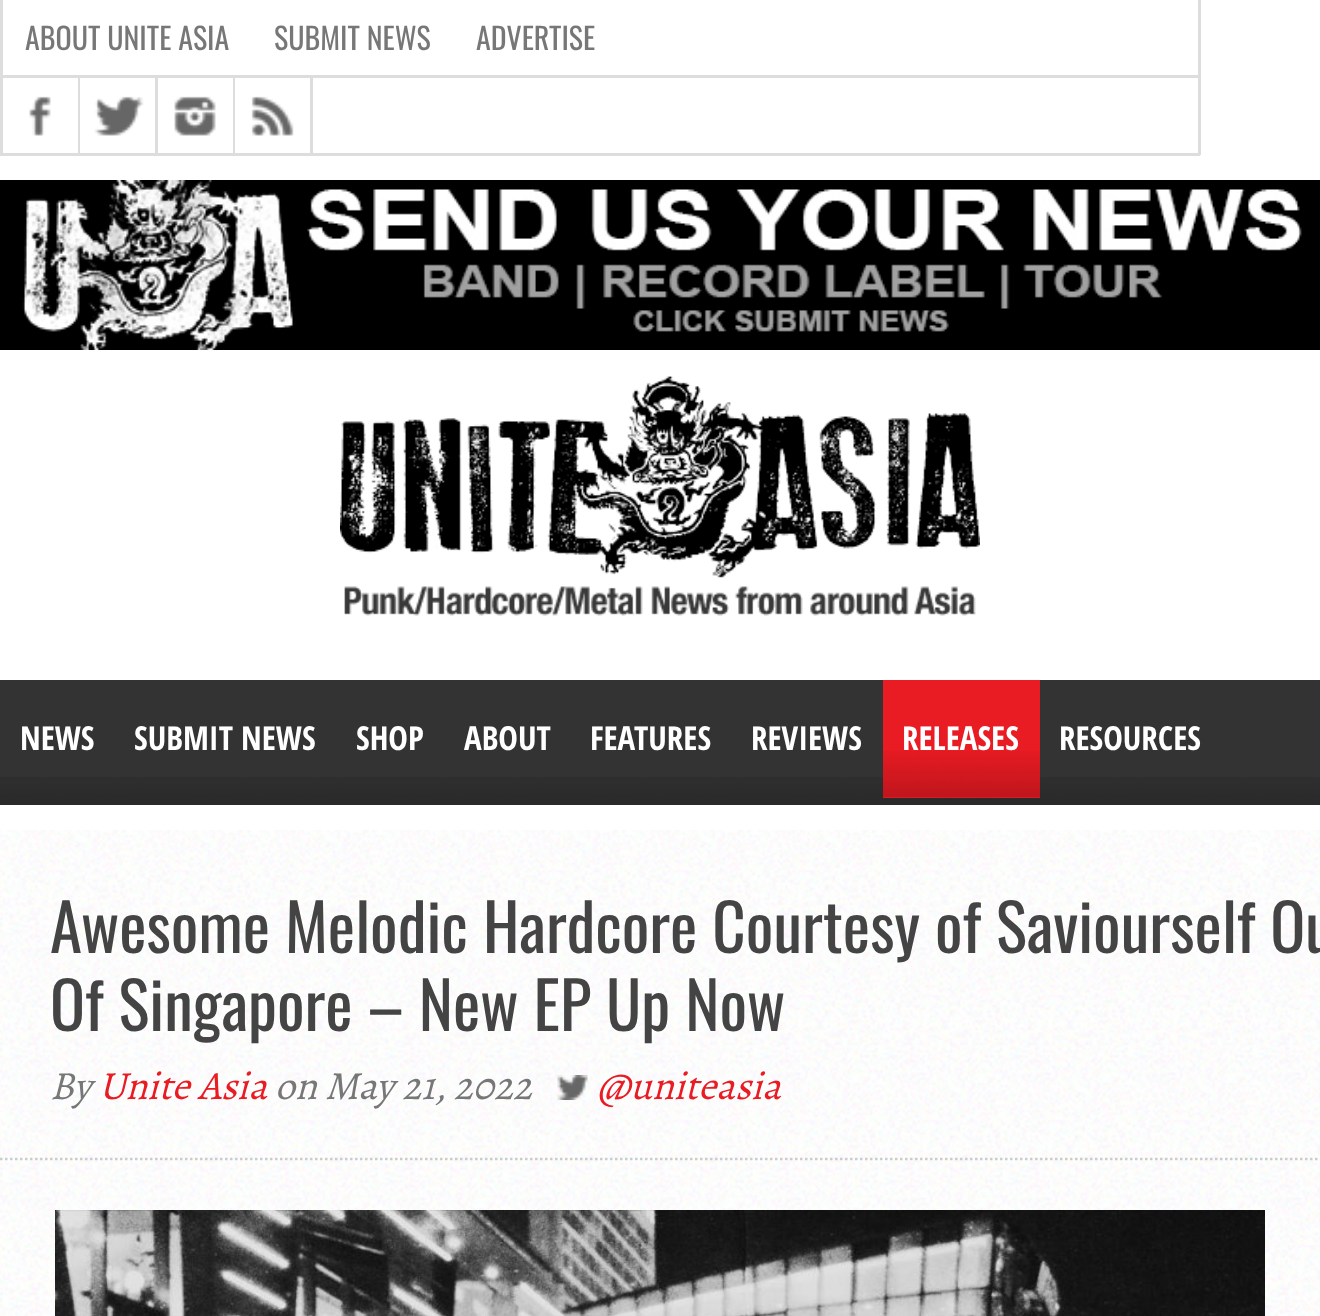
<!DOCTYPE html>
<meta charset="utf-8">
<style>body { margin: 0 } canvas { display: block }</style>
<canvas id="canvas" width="1320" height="1316"></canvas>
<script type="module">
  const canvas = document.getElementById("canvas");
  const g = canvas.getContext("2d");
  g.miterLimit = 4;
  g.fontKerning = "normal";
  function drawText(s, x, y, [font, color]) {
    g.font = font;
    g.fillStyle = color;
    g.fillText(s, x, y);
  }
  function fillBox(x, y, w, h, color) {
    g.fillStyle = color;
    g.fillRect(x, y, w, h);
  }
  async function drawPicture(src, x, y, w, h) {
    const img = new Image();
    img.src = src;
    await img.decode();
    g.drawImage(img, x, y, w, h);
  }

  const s1 = ["30px Oswald", "#777777"];
  const s2 = ["bold 33px Open Sans Condensed", "#FFFFFF"];
  const s3 = ["65px Oswald", "#444444"];
  const s4 = ["italic 40px Alegreya", "#777777"];
  const s5 = ["italic 40px Alegreya", "#E91B23"];

  fillBox(0, 0, 1320, 1316, "#FFFFFF");
  fillBox(1198, 0, 3, 155, "#DDDDDD");
  fillBox(0, 153, 1200, 3, "#DDDDDD");
  fillBox(0, 0, 3, 155, "#DDDDDD");
  drawText("ABOUT UNITE ASIA", 25, 50, s1);
  drawText("SUBMIT NEWS", 274, 50, s1);
  drawText("ADVERTISE", 476, 50, s1);
  fillBox(3, 75, 1195, 3, "#DDDDDD");
  await drawPicture("pic1.png", 29, 96, 22, 40);
  fillBox(78, 78, 2, 75, "#DDDDDD");
  await drawPicture("pic2.png", 94, 96, 50, 40);
  fillBox(155, 78, 3, 75, "#DDDDDD");
  await drawPicture("pic3.png", 174, 96, 42, 40);
  fillBox(310, 78, 3, 75, "#DDDDDD");
  fillBox(233, 78, 2, 75, "#DDDDDD");
  await drawPicture("pic4.png", 251, 96, 43, 40);
  await drawPicture("pic5.png", 0, 180, 1320, 170);
  await drawPicture("pic6.png", 340, 376, 640, 240);
  fillBox(0, 680, 1320, 125, "#333333");
  await drawPicture("pic7.png", 0, 777, 1320, 28);
  drawText("NEWS", 20, 750, s2);
  drawText("SUBMIT NEWS", 134, 750, s2);
  drawText("SHOP", 356, 750, s2);
  drawText("ABOUT", 464, 750, s2);
  drawText("FEATURES", 590, 750, s2);
  drawText("REVIEWS", 751, 750, s2);
  fillBox(883, 680, 157, 118, "#E91B23");
  await drawPicture("pic8.png", 883, 751, 157, 47);
  drawText("RELEASES", 902, 750, s2);
  drawText("RESOURCES", 1059, 750, s2);
  await drawPicture("pic10.png", 0, 830, 1320, 486);
  await drawPicture("pic9.png", 1240, 842, 27, 27);
  g.beginPath();
  g.moveTo(0, 1159);
  g.lineTo(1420, 1159);
  g.strokeStyle = "#CCCCCC";
  g.lineWidth = 2.5;
  g.setLineDash([2.5, 2.5]);
  g.stroke();
  drawText("Awesome Melodic Hardcore Courtesy of Saviourself Ou", 50, 953, s3);
  drawText("Of Singapore – New EP Up Now", 50, 1031, s3);
  drawText("By", 50, 1099, s4);
  drawText("Unite Asia", 99, 1099, s5);
  drawText("on May 21, 2022", 275, 1099, s4);
  await drawPicture("pic11.png", 557, 1075, 31, 25);
  drawText("@uniteasia", 597, 1099, s5);
  await drawPicture("pic12.png", 55, 1210, 1210, 106);
</script>
